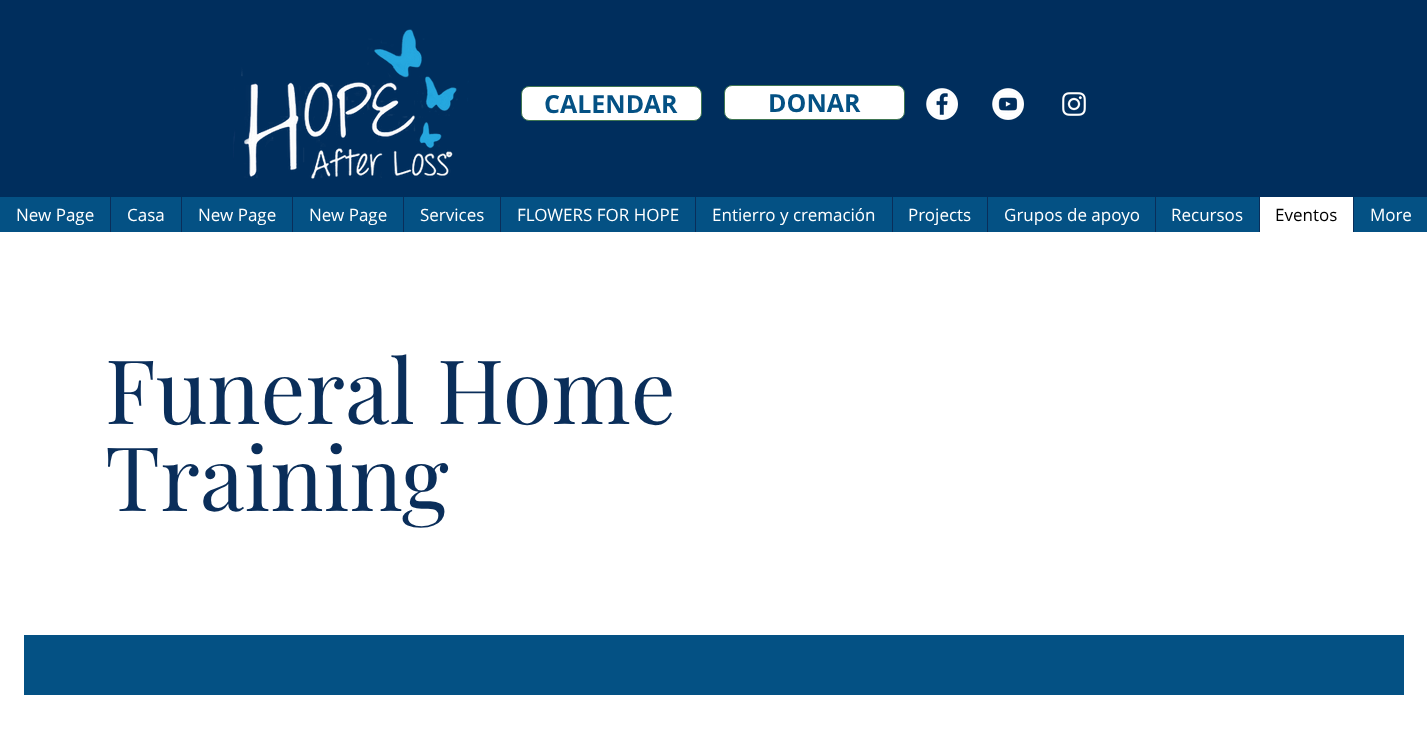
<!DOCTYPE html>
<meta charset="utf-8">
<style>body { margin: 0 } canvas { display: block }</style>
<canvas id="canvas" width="1427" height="733"></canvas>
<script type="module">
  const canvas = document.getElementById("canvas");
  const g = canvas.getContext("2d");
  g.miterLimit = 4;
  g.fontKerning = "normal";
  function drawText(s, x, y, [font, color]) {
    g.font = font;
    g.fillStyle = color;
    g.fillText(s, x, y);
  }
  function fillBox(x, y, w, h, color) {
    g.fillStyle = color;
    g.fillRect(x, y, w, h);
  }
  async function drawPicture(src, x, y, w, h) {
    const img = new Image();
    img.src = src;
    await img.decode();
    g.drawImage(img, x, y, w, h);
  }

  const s1 = ["bold 25px Open Sans", "#045184"];
  const s2 = ["17px Open Sans", "#FFFFFF"];
  const s3 = ["17px Open Sans", "#000000"];
  const s4 = ["89px Playfair Display", "#0A2E5A"];

  fillBox(0, 0, 1427, 733, "#FFFFFF");
  fillBox(0, 0, 1427, 197, "#002E5D");
  await drawPicture("pic1.png", 233, 29, 236, 150);
  g.fillStyle = "#FFFFFF";
  g.beginPath();
  g.roundRect(521.5, 86.5, 180, 34, 7.5);
  g.fill();
  g.strokeStyle = "#3F7652";
  g.stroke();
  drawText("CALENDAR", 544, 113, s1);
  g.fillStyle = "#FFFFFF";
  g.beginPath();
  g.roundRect(724.5, 85.5, 180, 34, 7.5);
  g.fill();
  g.stroke();
  drawText("DONAR", 768, 112, s1);
  await drawPicture("pic2.png", 926, 88, 32, 32);
  await drawPicture("pic3.png", 992, 88, 32, 32);
  await drawPicture("pic4.png", 1062, 92, 24, 24);
  fillBox(0, 197, 1427, 35, "#045184");
  drawText("New Page", 16, 221, s2);
  fillBox(110, 197, 1, 35, "#0A2E5A");
  drawText("Casa", 127, 221, s2);
  fillBox(181, 197, 1, 35, "#0A2E5A");
  drawText("New Page", 198, 221, s2);
  fillBox(292, 197, 1, 35, "#0A2E5A");
  drawText("New Page", 309, 221, s2);
  fillBox(403, 197, 1, 35, "#0A2E5A");
  drawText("Services", 420, 221, s2);
  fillBox(500, 197, 1, 35, "#0A2E5A");
  drawText("FLOWERS FOR HOPE", 517, 221, s2);
  fillBox(695, 197, 1, 35, "#0A2E5A");
  drawText("Entierro y cremación", 712, 221, s2);
  fillBox(892, 197, 1, 35, "#0A2E5A");
  drawText("Projects", 908, 221, s2);
  fillBox(987, 197, 1, 35, "#0A2E5A");
  drawText("Grupos de apoyo", 1004, 221, s2);
  fillBox(1155, 197, 1, 35, "#0A2E5A");
  drawText("Recursos", 1171, 221, s2);
  fillBox(1260, 197, 93, 35, "#FFFFFF");
  fillBox(1259, 197, 1, 35, "#0A2E5A");
  drawText("Eventos", 1275, 221, s3);
  fillBox(1353, 197, 1, 35, "#0A2E5A");
  drawText("More", 1370, 221, s2);
  drawText("Funeral Home", 105, 424, s4);
  drawText("Training", 105, 511, s4);
  fillBox(24, 635, 1380, 60, "#045184");
</script>
